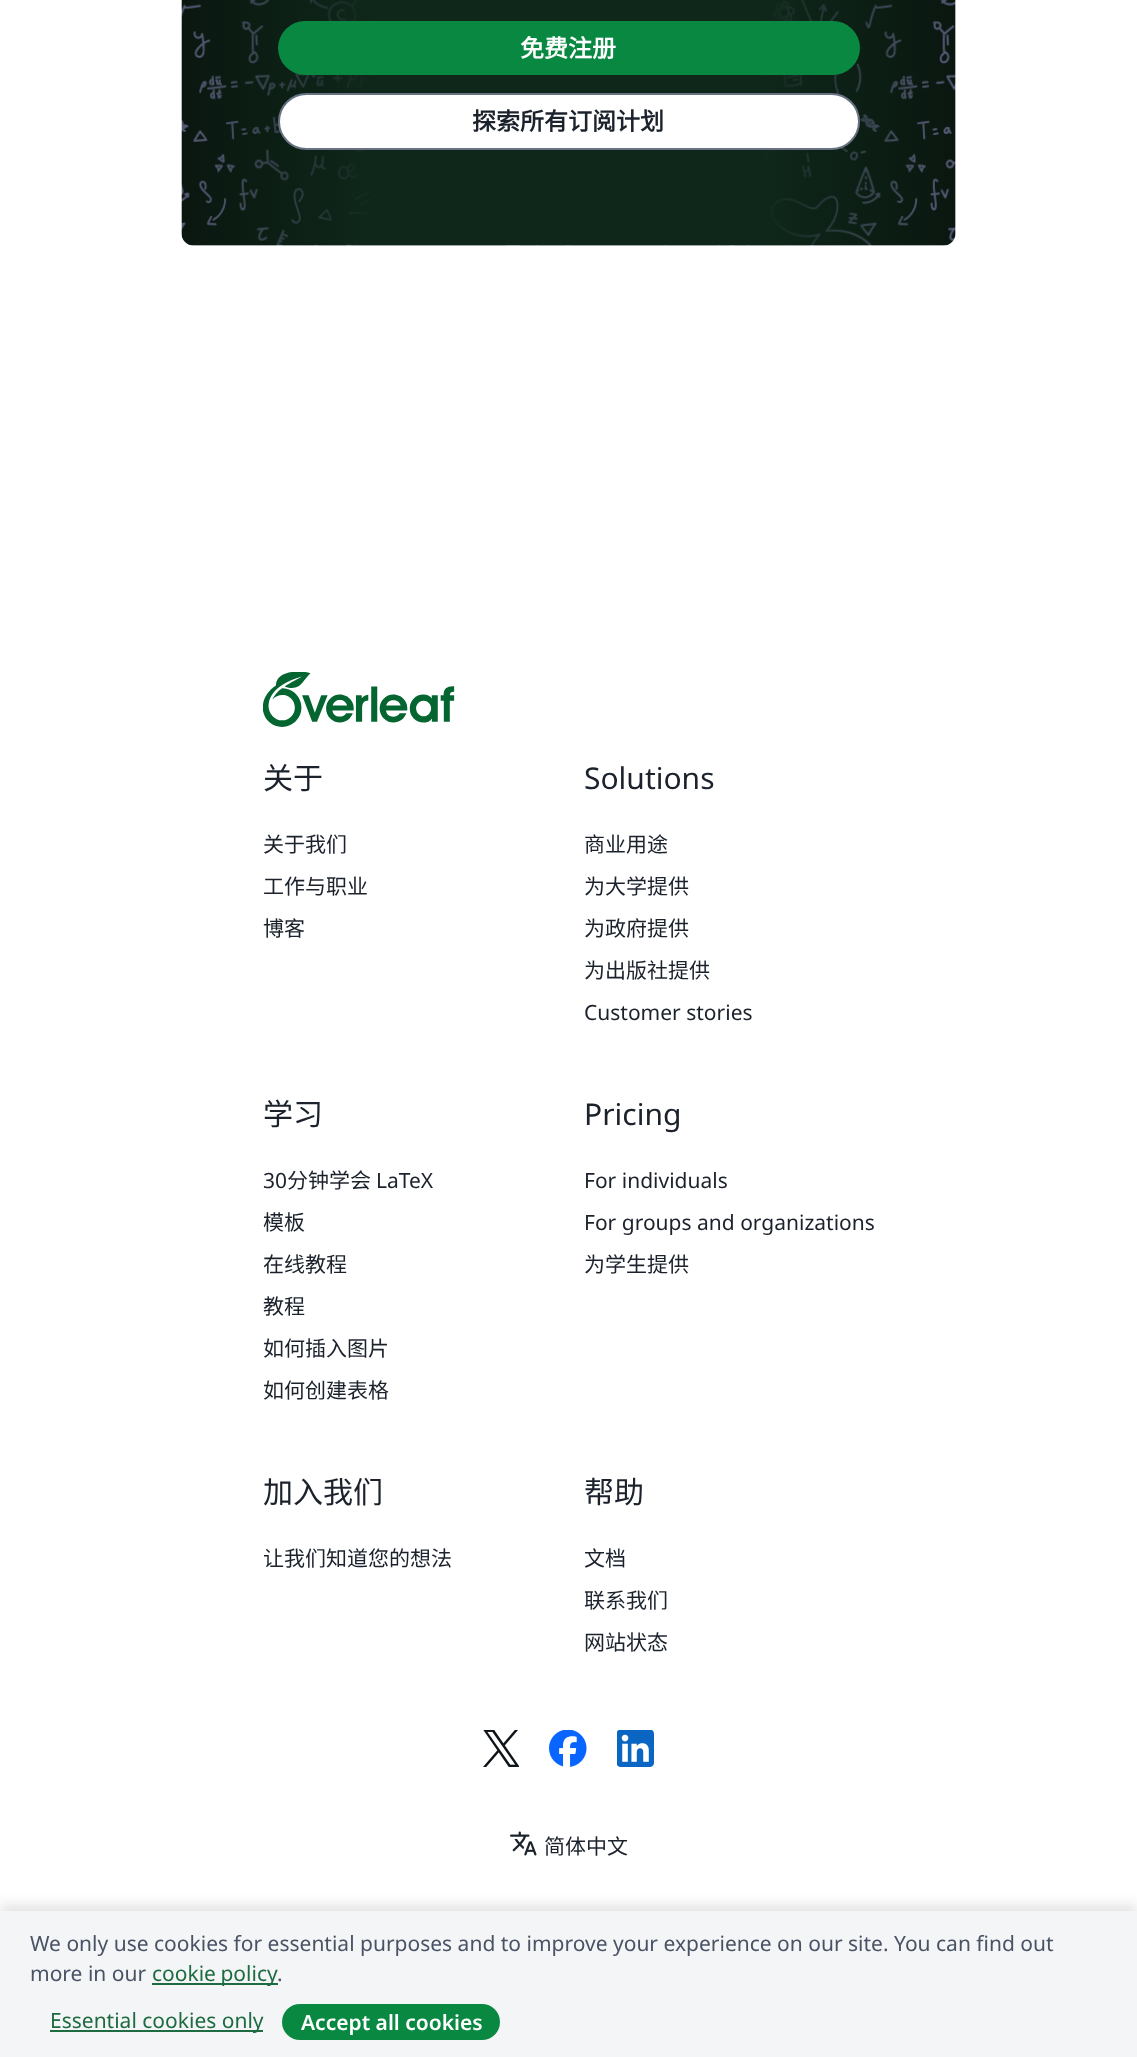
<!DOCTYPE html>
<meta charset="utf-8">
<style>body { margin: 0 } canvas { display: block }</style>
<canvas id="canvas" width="1137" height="2057"></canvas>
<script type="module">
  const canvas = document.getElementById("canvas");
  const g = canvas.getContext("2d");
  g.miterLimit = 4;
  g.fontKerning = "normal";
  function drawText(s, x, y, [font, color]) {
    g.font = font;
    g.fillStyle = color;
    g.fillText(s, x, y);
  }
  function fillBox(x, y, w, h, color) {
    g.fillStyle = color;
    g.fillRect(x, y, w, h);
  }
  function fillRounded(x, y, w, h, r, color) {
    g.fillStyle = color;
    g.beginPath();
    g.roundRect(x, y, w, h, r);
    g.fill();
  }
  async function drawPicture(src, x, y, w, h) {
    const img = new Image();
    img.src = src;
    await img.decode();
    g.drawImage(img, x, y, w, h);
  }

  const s1 = ["bold 24px Noto Sans CJK SC", "#FFFFFF"];
  const s2 = ["bold 24px Noto Sans CJK SC", "#1B222C"];
  const s3 = ["30px Noto Sans CJK SC", "#1B222C"];
  const s4 = ["21px Noto Sans CJK SC", "#1B222C"];
  const s5 = ["30px Noto Sans", "#1B222C"];
  const s6 = ["21px Noto Sans", "#1B222C"];
  const s7 = ["21px Noto Sans", "#495365"];
  const s8 = ["21px Noto Sans", "#1E6B41"];
  const s9 = ["600 21px Noto Sans", "#FFFFFF"];

  fillBox(0, 0, 1137, 2057, "#FFFFFF");
  fillRounded(182, -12, 774, 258, 12, "#F4F5F6");
  await drawPicture("pic1.png", 181, 0, 775, 246);
  fillRounded(278, 21, 582, 54, 27, "#098842");
  drawText("免费注册", 520, 57, s1);
  g.beginPath();
  g.roundRect(279, 94, 580, 55, 27.5);
  g.fill();
  g.strokeStyle = "#677283";
  g.lineWidth = 2;
  g.stroke();
  drawText("探索所有订阅计划", 472, 130, s2);
  await drawPicture("pic2.png", 263, 672, 192, 55);
  drawText("关于", 263, 789, s3);
  drawText("关于我们", 263, 852, s4);
  drawText("工作与职业", 263, 894, s4);
  drawText("博客", 263, 936, s4);
  drawText("Solutions", 584, 789, s5);
  drawText("商业用途", 584, 852, s4);
  drawText("为大学提供", 584, 894, s4);
  drawText("为政府提供", 584, 936, s4);
  drawText("为出版社提供", 584, 978, s4);
  drawText("Customer stories", 584, 1020, s6);
  drawText("学习", 263, 1125, s3);
  drawText("30", 263, 1188, s6);
  drawText("分钟学会", 287, 1188, s4);
  drawText("LaTeX", 376, 1188, s6);
  drawText("模板", 263, 1230, s4);
  drawText("在线教程", 263, 1272, s4);
  drawText("教程", 263, 1314, s4);
  drawText("如何插入图片", 263, 1356, s4);
  drawText("如何创建表格", 263, 1398, s4);
  drawText("Pricing", 584, 1125, s5);
  drawText("For individuals", 584, 1188, s6);
  drawText("For groups and organizations", 584, 1230, s6);
  drawText("为学生提供", 584, 1272, s4);
  drawText("加入我们", 263, 1503, s3);
  drawText("让我们知道您的想法", 263, 1566, s4);
  drawText("帮助", 584, 1503, s3);
  drawText("文档", 584, 1566, s4);
  drawText("联系我们", 584, 1608, s4);
  drawText("网站状态", 584, 1650, s4);
  await drawPicture("pic3.png", 483, 1730, 36, 37);
  await drawPicture("pic4.png", 549, 1730, 38, 37);
  await drawPicture("pic5.png", 617, 1730, 37, 37);
  await drawPicture("pic6.png", 510, 1831, 27, 25);
  drawText("简体中文", 544, 1854, s4);
  g.fillStyle = "rgba(0, 0, 0, 0.1)";
  g.filter = "blur(6px)";
  g.beginPath();
  g.rect(0, 1904, 1137, 147);
  g.fill();
  g.filter = "none";
  fillBox(0, 1911, 1137, 146, "#F4F5F6");
  drawText("We only use cookies for essential purposes and to improve your experience on our site. You can find out", 30, 1951, s7);
  drawText("more in our", 30, 1981, s7);
  fillBox(152, 1983, 126, 2, "#1E6B41");
  g.wordSpacing = "-1px";
  drawText("cookie policy", 152, 1981, s8);
  g.wordSpacing = "0px";
  drawText(".", 277, 1981, s7);
  fillBox(50, 2030, 213, 2, "#1E6B41");
  drawText("Essential cookies only", 50, 2028, s8);
  fillRounded(282, 2004, 218, 36, 18, "#098842");
  drawText("Accept all cookies", 301, 2030, s9);
</script>
